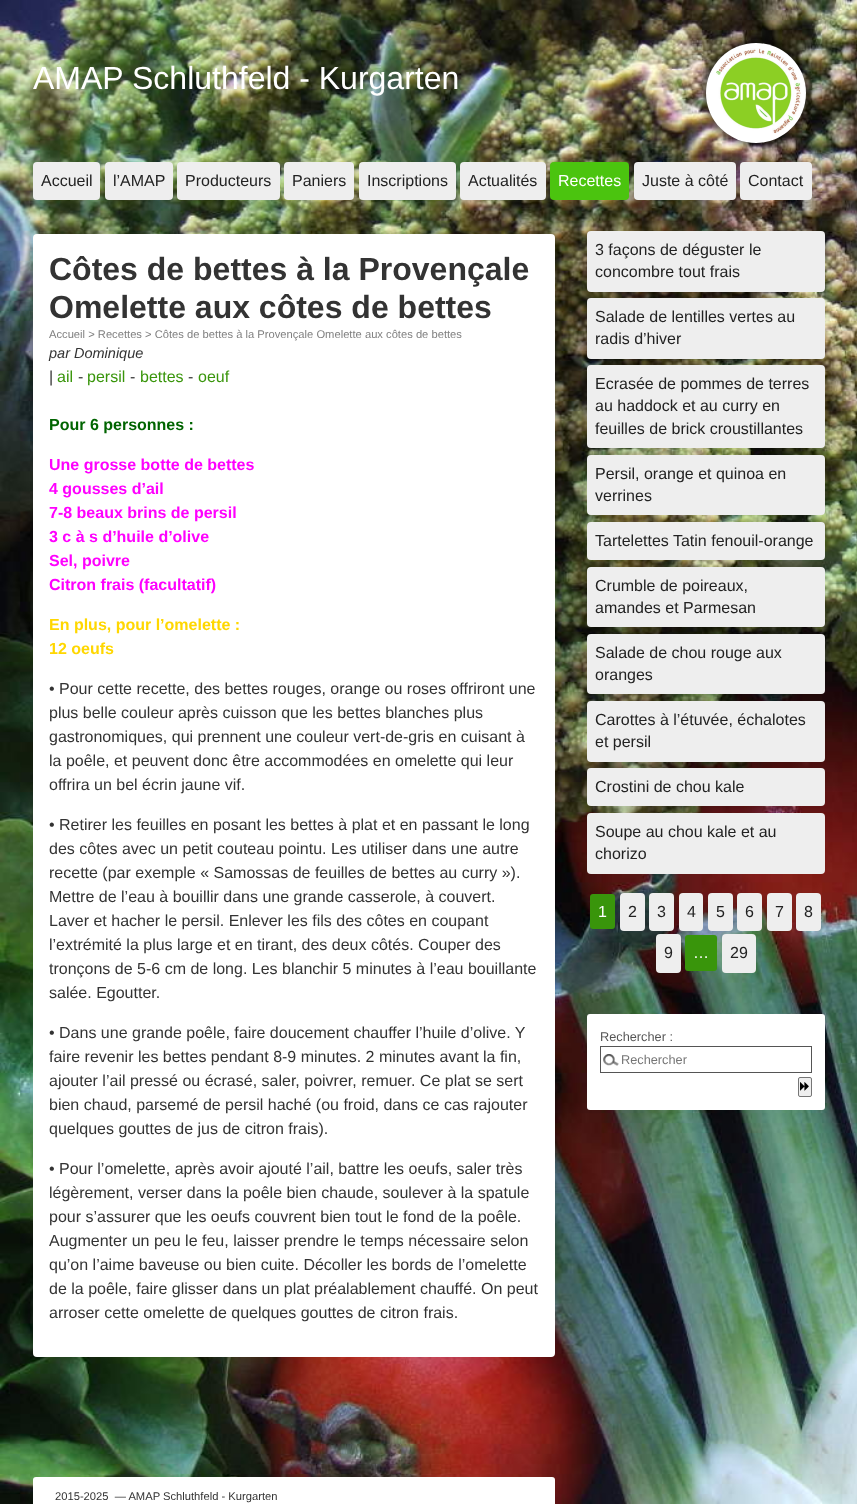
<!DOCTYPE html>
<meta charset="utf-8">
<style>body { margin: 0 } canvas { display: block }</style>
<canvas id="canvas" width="857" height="1504"></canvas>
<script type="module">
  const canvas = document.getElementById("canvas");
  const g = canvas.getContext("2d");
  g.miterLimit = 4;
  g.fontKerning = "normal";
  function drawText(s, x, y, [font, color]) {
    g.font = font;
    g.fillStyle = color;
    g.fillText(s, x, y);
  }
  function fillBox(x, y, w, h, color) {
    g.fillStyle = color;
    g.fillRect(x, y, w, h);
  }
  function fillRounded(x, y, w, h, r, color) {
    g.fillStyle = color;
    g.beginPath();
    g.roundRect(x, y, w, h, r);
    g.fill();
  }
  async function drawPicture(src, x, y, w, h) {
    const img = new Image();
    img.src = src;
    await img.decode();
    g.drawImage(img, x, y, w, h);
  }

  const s1 = ["32px Liberation Sans", "#FFFFFF"];
  const s2 = ["16px Liberation Sans", "#222222"];
  const s3 = ["16px Liberation Sans", "#FFFFFF"];
  const s4 = ["bold 32px Liberation Sans", "#333333"];
  const s5 = ["11.2px Liberation Sans", "#808080"];
  const s6 = ["italic 14.5px Liberation Sans", "#333333"];
  const s7 = ["16px Liberation Sans", "#333333"];
  const s8 = ["16px Liberation Sans", "#39950B"];
  const s9 = ["bold 16px Liberation Sans", "#006400"];
  const s10 = ["bold 16px Liberation Sans", "#FF00FF"];
  const s11 = ["bold 16px Liberation Sans", "#FFD700"];
  const s12 = ["12.75px Liberation Sans", "#555555"];
  const s13 = ["12.75px Liberation Sans", "#757575"];
  const s14 = ["11.2px Liberation Sans", "#333333"];

  fillBox(0, 0, 857, 1504, "#FFFFFF");
  await drawPicture("pic1.png", 0, 0, 857, 1504);
  drawText("AMAP Schluthfeld - Kurgarten", 33, 89, s1);
  g.fillStyle = "#000000";
  g.filter = "blur(6px)";
  g.beginPath();
  g.roundRect(706, 43, 100, 100, 50);
  g.fill();
  g.filter = "none";
  await drawPicture("pic2.png", 706, 43, 100, 100);
  fillRounded(33, 162, 67, 38, 4, "#EEEEEE");
  drawText("Accueil", 41, 186, s2);
  fillRounded(105, 162, 68, 38, 4, "#EEEEEE");
  drawText("l’AMAP", 113, 186, s2);
  fillRounded(177, 162, 103, 38, 4, "#EEEEEE");
  drawText("Producteurs", 185, 186, s2);
  fillRounded(284, 162, 70, 38, 4, "#EEEEEE");
  drawText("Paniers", 292, 186, s2);
  fillRounded(359, 162, 97, 38, 4, "#EEEEEE");
  drawText("Inscriptions", 367, 186, s2);
  fillRounded(460, 162, 86, 38, 4, "#EEEEEE");
  drawText("Actualités", 468, 186, s2);
  fillRounded(550, 162, 79, 38, 4, "#4BC40F");
  drawText("Recettes", 558, 186, s3);
  fillRounded(634, 162, 102, 38, 4, "#EEEEEE");
  drawText("Juste à côté", 642, 186, s2);
  fillRounded(740, 162, 72, 38, 4, "#EEEEEE");
  drawText("Contact", 748, 186, s2);
  fillRounded(33, 234, 522, 1123, 4, "#FFFFFF");
  drawText("Côtes de bettes à la Provençale", 49, 280, s4);
  drawText("Omelette aux côtes de bettes", 49, 318, s4);
  drawText("Accueil > Recettes > Côtes de bettes à la Provençale Omelette aux côtes de bettes", 49, 338, s5);
  drawText("par Dominique", 49, 358, s6);
  drawText("|", 49, 382, s7);
  drawText("ail", 57, 382, s8);
  drawText("-", 78, 382, s7);
  drawText("persil", 87, 382, s8);
  drawText("-", 130, 382, s7);
  drawText("bettes", 140, 382, s8);
  drawText("-", 188, 382, s7);
  drawText("oeuf", 198, 382, s8);
  drawText("Pour 6 personnes :", 49, 430, s9);
  drawText("Une grosse botte de bettes", 49, 470, s10);
  drawText("4 gousses d’ail", 49, 494, s10);
  drawText("7-8 beaux brins de persil", 49, 518, s10);
  drawText("3 c à s d’huile d’olive", 49, 542, s10);
  drawText("Sel, poivre", 49, 566, s10);
  drawText("Citron frais (facultatif)", 49, 590, s10);
  drawText("En plus, pour l’omelette :", 49, 630, s11);
  drawText("12 oeufs", 49, 654, s11);
  drawText("• Pour cette recette, des bettes rouges, orange ou roses offriront une", 49, 694, s7);
  drawText("plus belle couleur après cuisson que les bettes blanches plus", 49, 718, s7);
  drawText("gastronomiques, qui prennent une couleur vert-de-gris en cuisant à", 49, 742, s7);
  drawText("la poêle, et peuvent donc être accommodées en omelette qui leur", 49, 766, s7);
  drawText("offrira un bel écrin jaune vif.", 49, 790, s7);
  drawText("• Retirer les feuilles en posant les bettes à plat et en passant le long", 49, 830, s7);
  drawText("des côtes avec un petit couteau pointu. Les utiliser dans une autre", 49, 854, s7);
  drawText("recette (par exemple « Samossas de feuilles de bettes au curry »).", 49, 878, s7);
  drawText("Mettre de l’eau à bouillir dans une grande casserole, à couvert.", 49, 902, s7);
  drawText("Laver et hacher le persil. Enlever les fils des côtes en coupant", 49, 926, s7);
  drawText("l’extrémité la plus large et en tirant, des deux côtés. Couper des", 49, 950, s7);
  drawText("tronçons de 5-6 cm de long. Les blanchir 5 minutes à l’eau bouillante", 49, 974, s7);
  drawText("salée. Egoutter.", 49, 998, s7);
  drawText("• Dans une grande poêle, faire doucement chauffer l’huile d’olive. Y", 49, 1038, s7);
  drawText("faire revenir les bettes pendant 8-9 minutes. 2 minutes avant la fin,", 49, 1062, s7);
  drawText("ajouter l’ail pressé ou écrasé, saler, poivrer, remuer. Ce plat se sert", 49, 1086, s7);
  drawText("bien chaud, parsemé de persil haché (ou froid, dans ce cas rajouter", 49, 1110, s7);
  drawText("quelques gouttes de jus de citron frais).", 49, 1134, s7);
  drawText("• Pour l’omelette, après avoir ajouté l’ail, battre les oeufs, saler très", 49, 1174, s7);
  drawText("légèrement, verser dans la poêle bien chaude, soulever à la spatule", 49, 1198, s7);
  drawText("pour s’assurer que les oeufs couvrent bien tout le fond de la poêle.", 49, 1222, s7);
  drawText("Augmenter un peu le feu, laisser prendre le temps nécessaire selon", 49, 1246, s7);
  drawText("qu’on l’aime baveuse ou bien cuite. Décoller les bords de l’omelette", 49, 1270, s7);
  drawText("de la poêle, faire glisser dans un plat préalablement chauffé. On peut", 49, 1294, s7);
  drawText("arroser cette omelette de quelques gouttes de citron frais.", 49, 1318, s7);
  fillRounded(587, 231, 238, 61, 4, "#EEEEEE");
  drawText("3 façons de déguster le", 595, 255, s2);
  drawText("concombre tout frais", 595, 277, s2);
  fillRounded(587, 298, 238, 61, 4, "#EEEEEE");
  drawText("Salade de lentilles vertes au", 595, 322, s2);
  drawText("radis d’hiver", 595, 344, s2);
  fillRounded(587, 365, 238, 83, 4, "#EEEEEE");
  drawText("Ecrasée de pommes de terres", 595, 389, s2);
  drawText("au haddock et au curry en", 595, 411, s2);
  drawText("feuilles de brick croustillantes", 595, 434, s2);
  fillRounded(587, 455, 238, 60, 4, "#EEEEEE");
  drawText("Persil, orange et quinoa en", 595, 479, s2);
  drawText("verrines", 595, 501, s2);
  fillRounded(587, 522, 238, 38, 4, "#EEEEEE");
  drawText("Tartelettes Tatin fenouil-orange", 595, 546, s2);
  fillRounded(587, 567, 238, 60, 4, "#EEEEEE");
  drawText("Crumble de poireaux,", 595, 591, s2);
  drawText("amandes et Parmesan", 595, 613, s2);
  fillRounded(587, 634, 238, 60, 4, "#EEEEEE");
  drawText("Salade de chou rouge aux", 595, 658, s2);
  drawText("oranges", 595, 680, s2);
  fillRounded(587, 701, 238, 61, 4, "#EEEEEE");
  drawText("Carottes à l’étuvée, échalotes", 595, 725, s2);
  drawText("et persil", 595, 747, s2);
  fillRounded(587, 768, 238, 38, 4, "#EEEEEE");
  drawText("Crostini de chou kale", 595, 792, s2);
  fillRounded(587, 813, 238, 61, 4, "#EEEEEE");
  drawText("Soupe au chou kale et au", 595, 837, s2);
  drawText("chorizo", 595, 859, s2);
  fillRounded(590, 894, 25, 35, 3, "#39950B");
  drawText("1", 598, 917, s3);
  fillRounded(620, 893, 25, 38, 4, "#EEEEEE");
  drawText("2", 628, 917, s2);
  fillRounded(649, 893, 25, 38, 4, "#EEEEEE");
  drawText("3", 657, 917, s2);
  fillRounded(679, 893, 24, 38, 4, "#EEEEEE");
  drawText("4", 687, 917, s2);
  fillRounded(708, 893, 25, 38, 4, "#EEEEEE");
  drawText("5", 716, 917, s2);
  fillRounded(737, 893, 25, 38, 4, "#EEEEEE");
  drawText("6", 745, 917, s2);
  fillRounded(767, 893, 25, 38, 4, "#EEEEEE");
  drawText("7", 775, 917, s2);
  fillRounded(796, 893, 25, 38, 4, "#EEEEEE");
  drawText("8", 804, 917, s2);
  fillRounded(656, 934, 25, 39, 4, "#EEEEEE");
  drawText("9", 664, 958, s2);
  fillRounded(685, 935, 32, 36, 3, "#39950B");
  drawText("…", 693, 958, s3);
  fillRounded(722, 934, 34, 39, 4, "#EEEEEE");
  drawText("29", 730, 958, s2);
  fillRounded(587, 1014, 238, 96, 3, "#FFFFFF");
  drawText("Rechercher :", 600, 1041, s12);
  await drawPicture("pic3.png", 603, 1054, 16, 12);
  g.strokeStyle = "#555555";
  g.strokeRect(600.5, 1046.5, 211, 26);
  drawText("Rechercher", 621, 1064, s13);
  g.fillStyle = "#EFEFEF";
  g.beginPath();
  g.roundRect(798.5, 1077.5, 13, 19, 1.5);
  g.fill();
  g.strokeStyle = "#767676";
  g.stroke();
  await drawPicture("pic4.png", 800, 1082, 9, 9);
  fillRounded(33, 1477, 522, 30, 3, "#FFFFFF");
  drawText("2015-2025  — AMAP Schluthfeld - Kurgarten", 55, 1500, s14);
</script>
